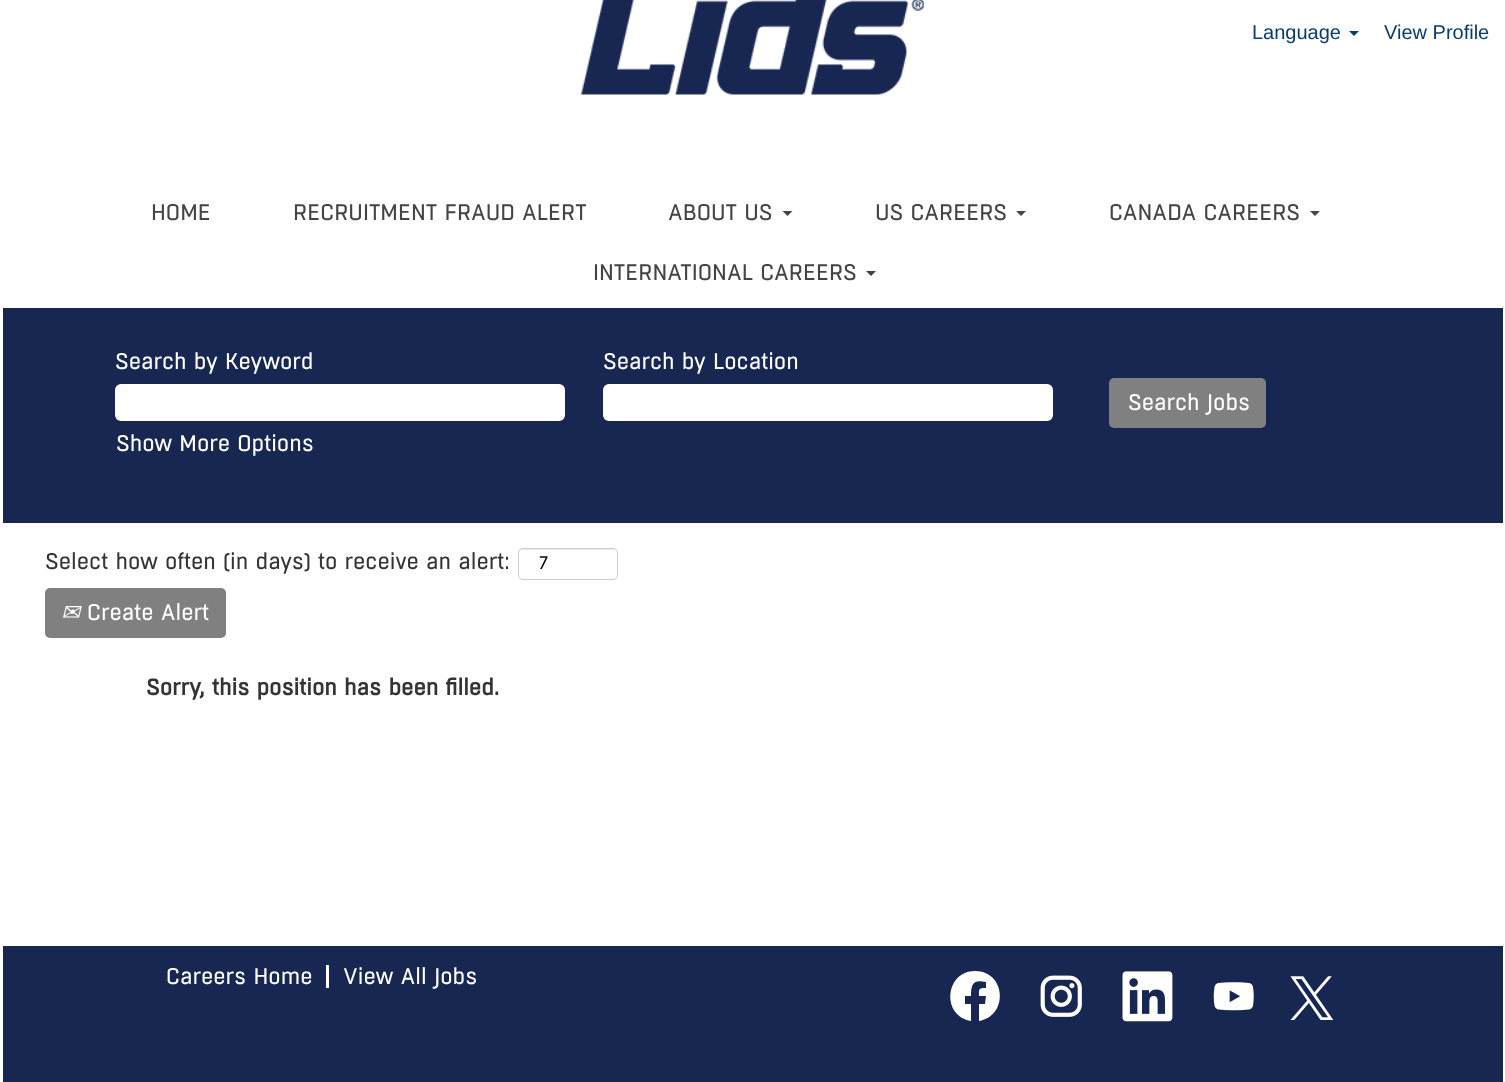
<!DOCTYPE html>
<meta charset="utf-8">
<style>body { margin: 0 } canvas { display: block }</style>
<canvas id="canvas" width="1505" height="1082"></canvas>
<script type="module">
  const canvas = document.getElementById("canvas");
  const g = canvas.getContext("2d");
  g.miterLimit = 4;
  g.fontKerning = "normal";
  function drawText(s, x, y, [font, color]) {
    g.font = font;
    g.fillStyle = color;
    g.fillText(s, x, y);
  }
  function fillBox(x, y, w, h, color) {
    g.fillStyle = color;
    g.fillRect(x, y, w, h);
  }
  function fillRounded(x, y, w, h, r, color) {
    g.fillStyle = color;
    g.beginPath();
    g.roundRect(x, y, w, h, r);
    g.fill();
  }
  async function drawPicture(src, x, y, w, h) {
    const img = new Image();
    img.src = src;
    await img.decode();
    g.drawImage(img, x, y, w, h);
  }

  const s1 = ["20px Liberation Sans", "#083C70"];
  const s2 = ["22.5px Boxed", "#444444"];
  const s3 = ["22.5px Boxed", "#FFFFFF"];
  const s4 = ["22.5px Boxed", "#343434"];
  const s5 = ["18px Boxed", "#000000"];
  const s6 = ["italic 22.5px DejaVu Sans", "#FFFFFF"];
  const s7 = ["bold 22.5px Boxed", "#343434"];

  fillBox(0, 0, 1505, 1082, "#FFFFFF");
  await drawPicture("pic1.png", 581, 0, 343, 95);
  drawText("Language", 1252, 39, s1);
  g.beginPath();
  g.moveTo(1349, 31);
  g.lineTo(1359, 31);
  g.lineTo(1354, 36);
  g.closePath();
  g.fill();
  drawText("View Profile", 1384, 39, s1);
  drawText("HOME", 151, 220, s2);
  drawText("RECRUITMENT FRAUD ALERT", 293, 220, s2);
  drawText("ABOUT US", 668, 220, s2);
  g.beginPath();
  g.moveTo(782.5, 211);
  g.lineTo(792.5, 211);
  g.lineTo(787.5, 216);
  g.closePath();
  g.fill();
  drawText("US CAREERS", 875, 220, s2);
  g.beginPath();
  g.moveTo(1016, 211);
  g.lineTo(1026, 211);
  g.lineTo(1021, 216);
  g.closePath();
  g.fill();
  drawText("CANADA CAREERS", 1109, 220, s2);
  g.beginPath();
  g.moveTo(1310, 211);
  g.lineTo(1320, 211);
  g.lineTo(1315, 216);
  g.closePath();
  g.fill();
  drawText("INTERNATIONAL CAREERS", 593, 280, s2);
  g.beginPath();
  g.moveTo(866, 271);
  g.lineTo(876, 271);
  g.lineTo(871, 276);
  g.closePath();
  g.fill();
  fillBox(3, 308, 1500, 215, "#172751");
  drawText("Search by Keyword", 115, 369, s3);
  fillRounded(115, 384, 450, 37, 6, "#FFFFFF");
  drawText("Search by Location", 603, 369, s3);
  fillRounded(603, 384, 450, 37, 6, "#FFFFFF");
  drawText("Show More Options", 116, 451, s3);
  fillRounded(1109, 378, 157, 50, 5, "#808080");
  drawText("Search Jobs", 1128, 410, s3);
  drawText("Select how often (in days) to receive an alert:", 45, 569, s4);
  g.fillStyle = "#ECECEC";
  g.beginPath();
  g.moveTo(522, 550);
  g.lineTo(612, 550);
  g.bezierCurveTo(615, 550, 616, 552, 616, 554);
  g.bezierCurveTo(616, 545, 602, 549, 597, 549);
  g.lineTo(538, 549);
  g.bezierCurveTo(533, 549, 519, 545, 519, 554);
  g.bezierCurveTo(519, 552, 520, 550, 522, 550);
  g.closePath();
  g.fill();
  g.beginPath();
  g.roundRect(518.5, 548.5, 99, 31, 4.5);
  g.strokeStyle = "#CCCCCC";
  g.stroke();
  drawText("7", 539, 569, s5);
  fillRounded(45, 588, 181, 50, 5, "#808080");
  drawText("✉", 61, 620, s6);
  drawText("Create Alert", 87, 620, s3);
  drawText("Sorry, this position has been filled.", 146, 695, s7);
  fillBox(3, 946, 1500, 136, "#172751");
  fillBox(326, 965, 3, 23, "#FFFFFF");
  drawText("Careers Home", 166, 984, s3);
  drawText("View All Jobs", 343, 984, s3);
  g.beginPath();
  g.moveTo(975, 971);
  g.bezierCurveTo(945, 971, 941, 1016, 971, 1021);
  g.lineTo(971, 1004);
  g.lineTo(965, 1004);
  g.lineTo(965, 996);
  g.lineTo(971, 996);
  g.bezierCurveTo(971, 984, 973, 979, 986, 982);
  g.lineTo(986, 988);
  g.bezierCurveTo(978, 988, 979, 989, 979, 996);
  g.lineTo(986, 996);
  g.lineTo(985, 1004);
  g.lineTo(979, 1004);
  g.lineTo(979, 1021);
  g.bezierCurveTo(1009, 1016, 1006, 971, 975, 971);
  g.closePath();
  g.fill();
  await drawPicture("pic2.png", 1040, 975, 42, 42);
  await drawPicture("pic3.png", 1122, 971, 51, 51);
  await drawPicture("pic4.png", 1213, 982, 41, 29);
  await drawPicture("pic5.png", 1290, 976, 44, 44);
</script>
